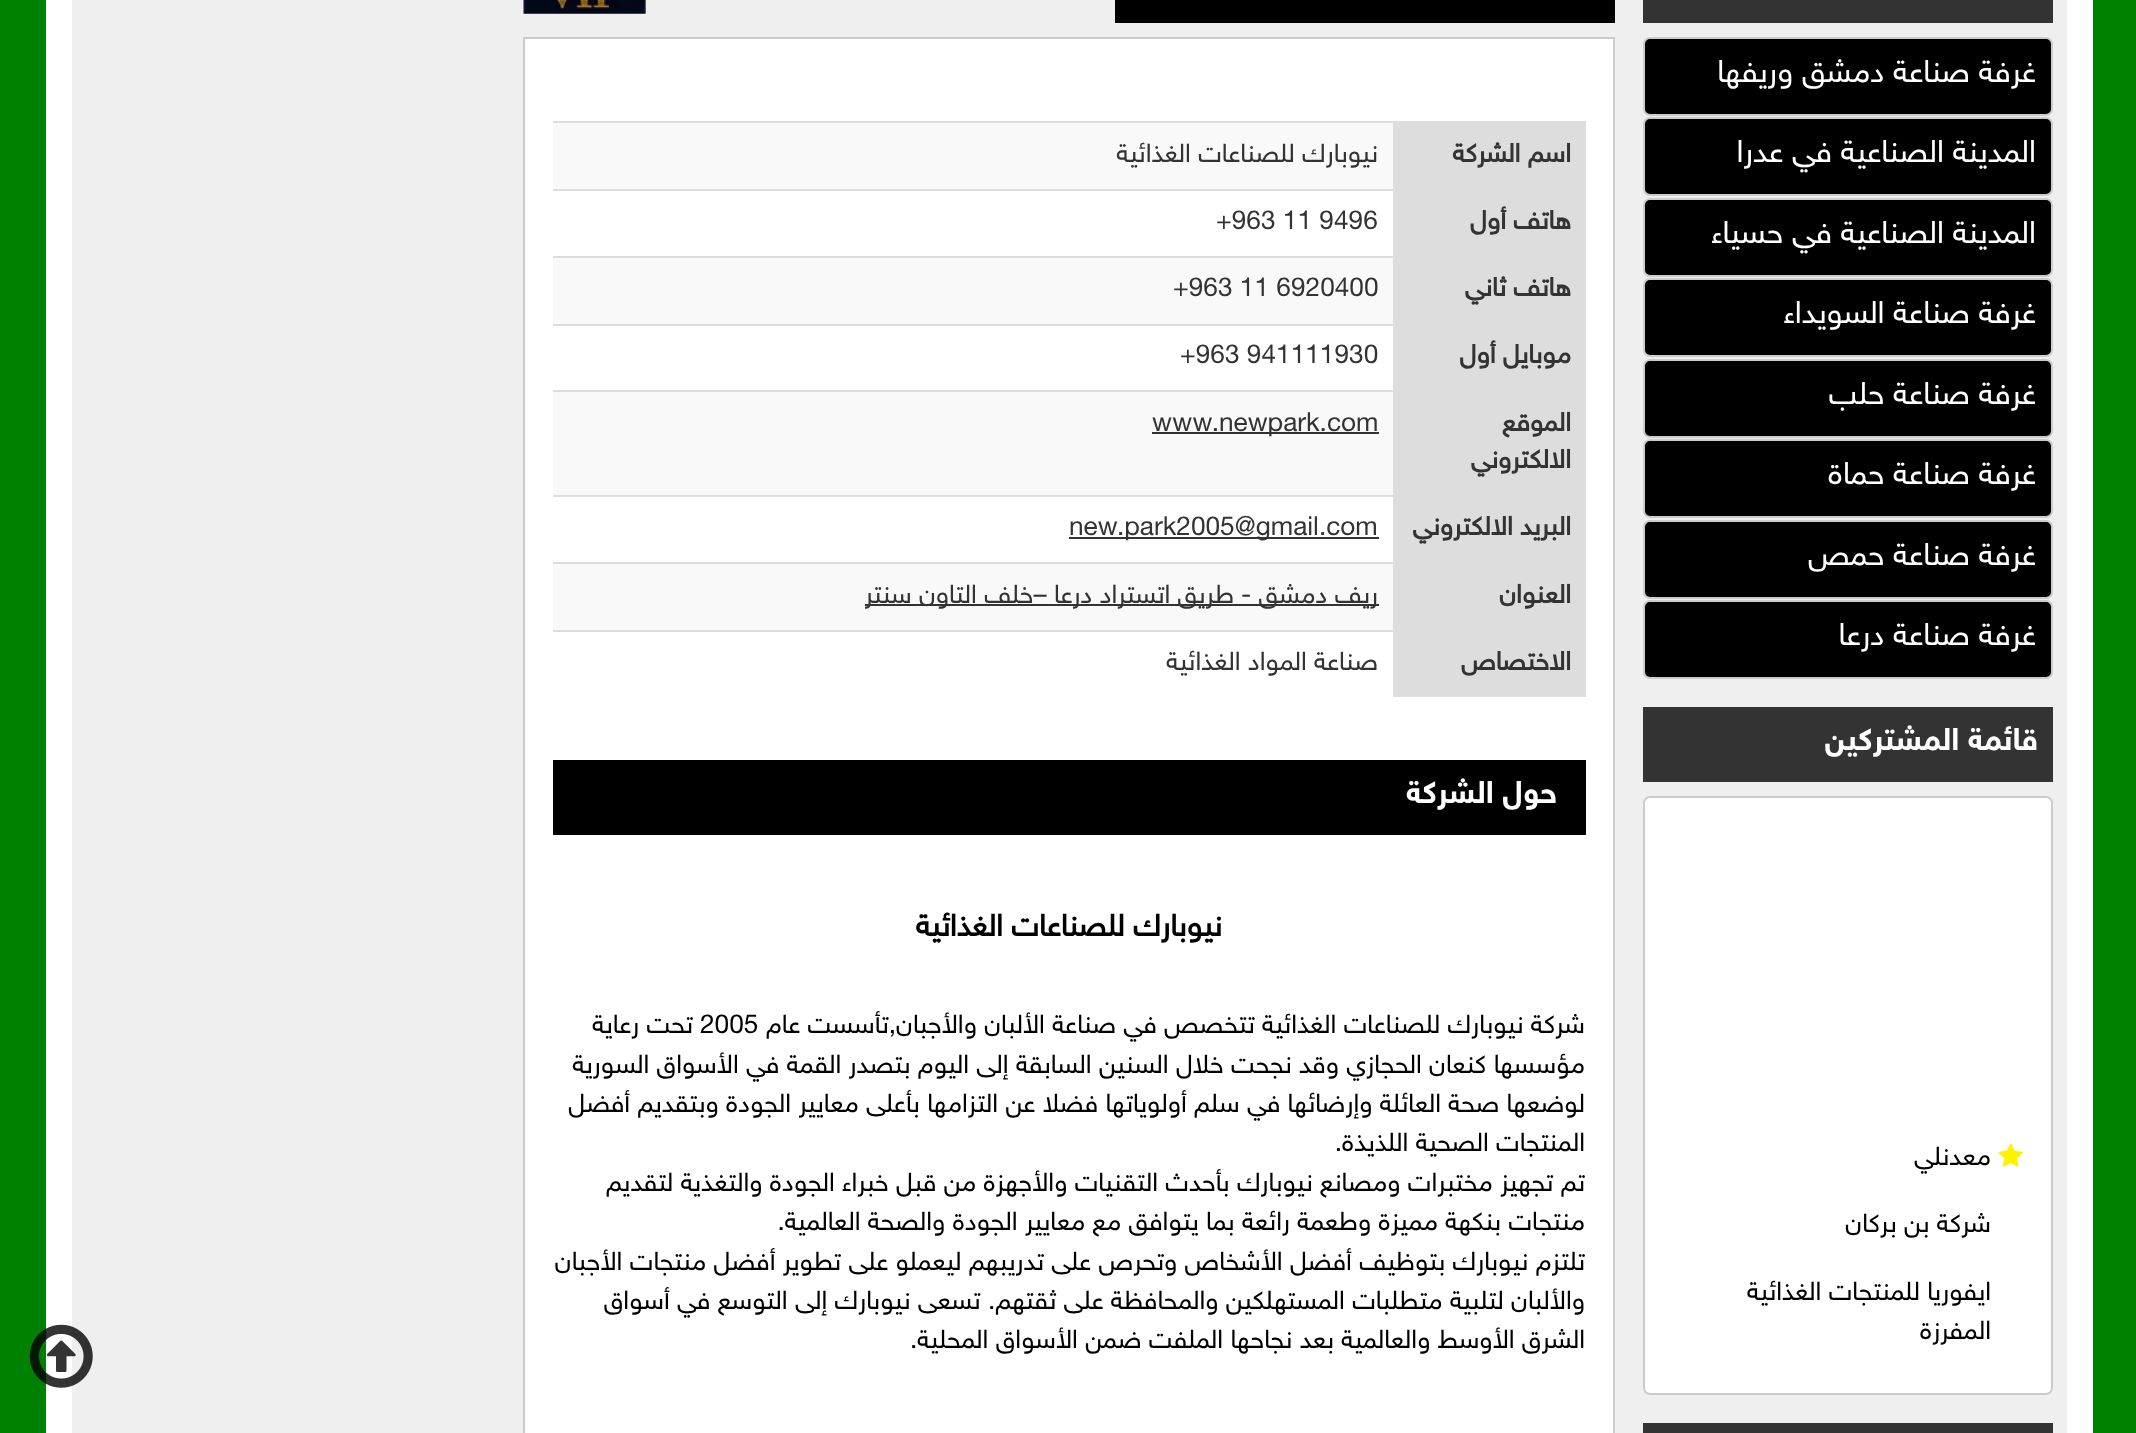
<!DOCTYPE html>
<meta charset="utf-8">
<style>body { margin: 0 } canvas { display: block }</style>
<canvas id="canvas" width="2136" height="1433"></canvas>
<script type="module">
  const canvas = document.getElementById("canvas");
  const g = canvas.getContext("2d");
  g.miterLimit = 4;
  g.fontKerning = "normal";
  function drawText(s, x, y, [font, color]) {
    g.font = font;
    g.fillStyle = color;
    g.fillText(s, x, y);
  }
  function fillBox(x, y, w, h, color) {
    g.fillStyle = color;
    g.fillRect(x, y, w, h);
  }
  async function drawPicture(src, x, y, w, h) {
    const img = new Image();
    img.src = src;
    await img.decode();
    g.drawImage(img, x, y, w, h);
  }

  const s1 = ["31.5px 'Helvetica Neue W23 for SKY'", "#FFFFFF"];
  const s2 = ["bold 31.5px 'Helvetica Neue W23 for SKY'", "#FFFFFF"];
  const s3 = ["26.25px 'Helvetica Neue W23 for SKY'", "#000000"];
  const s4 = ["bold 26.25px 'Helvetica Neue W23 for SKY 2'", "#333333"];
  const s5 = ["26.25px 'Helvetica Neue W23 for SKY'", "#333333"];
  const s6 = ["bold 30.75px 'Helvetica Neue W23 for SKY 2'", "#000000"];

  fillBox(0, 0, 2136, 1433, "#008000");
  fillBox(46, 0, 2047, 1433, "#FFFFFF");
  fillBox(72, 0, 1995, 1433, "#EFEFEF");
  fillBox(1643, 0, 410, 23, "#333333");
  g.fillStyle = "#000000";
  g.beginPath();
  g.roundRect(1644, 38, 408, 77, 6);
  g.fill();
  g.strokeStyle = "#CCCCCC";
  g.lineWidth = 2;
  g.stroke();
  g.direction = "rtl";
  drawText("غرفة صناعة دمشق وريفها", 2036, 82, s1);
  g.fillStyle = "#000000";
  g.beginPath();
  g.roundRect(1644, 118, 408, 77, 6);
  g.fill();
  g.stroke();
  drawText("المدينة الصناعية في عدرا", 2036, 162, s1);
  g.fillStyle = "#000000";
  g.beginPath();
  g.roundRect(1644, 199, 408, 77, 6);
  g.fill();
  g.stroke();
  drawText("المدينة الصناعية في حسياء", 2036, 243, s1);
  g.fillStyle = "#000000";
  g.beginPath();
  g.roundRect(1644, 279, 408, 77, 6);
  g.fill();
  g.stroke();
  drawText("غرفة صناعة السويداء", 2036, 323, s1);
  g.fillStyle = "#000000";
  g.beginPath();
  g.roundRect(1644, 360, 408, 77, 6);
  g.fill();
  g.stroke();
  drawText("غرفة صناعة حلب", 2036, 404, s1);
  g.fillStyle = "#000000";
  g.beginPath();
  g.roundRect(1644, 440, 408, 77, 6);
  g.fill();
  g.stroke();
  drawText("غرفة صناعة حماة", 2036, 484, s1);
  g.fillStyle = "#000000";
  g.beginPath();
  g.roundRect(1644, 521, 408, 77, 6);
  g.fill();
  g.stroke();
  drawText("غرفة صناعة حمص", 2036, 565, s1);
  g.fillStyle = "#000000";
  g.beginPath();
  g.roundRect(1644, 601, 408, 77, 6);
  g.fill();
  g.stroke();
  drawText("غرفة صناعة درعا", 2036, 645, s1);
  fillBox(1643, 707, 410, 75, "#333333");
  drawText("قائمة المشتركين", 2038, 750, s2);
  g.beginPath();
  g.roundRect(1644, 797, 408, 597, 6);
  g.fill();
  g.stroke();
  await drawPicture("pic1.png", 1998, 1143, 25, 24);
  drawText("معدنلي", 1991, 1165, s3);
  drawText("شركة بن بركان", 1991, 1232, s3);
  drawText("ايفوريا للمنتجات الغذائية", 1991, 1300, s3);
  drawText("المفرزة", 1991, 1339, s3);
  fillBox(1643, 1423, 410, 10, "#333333");
  fillBox(1115, 0, 500, 23, "#000000");
  await drawPicture("pic2.png", 523, 0, 123, 14);
  g.fillStyle = "#FFFFFF";
  g.beginPath();
  g.rect(524, 38, 1090, 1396);
  g.fill();
  g.stroke();
  fillBox(553, 123, 840, 66, "#F9F9F9");
  fillBox(1393, 123, 193, 574, "#DDDDDD");
  drawText("اسم الشركة", 1571, 162, s4);
  fillBox(553, 121, 1033, 2, "#DDDDDD");
  drawText("نيوبارك للصناعات الغذائية", 1378, 162, s5);
  drawText("هاتف أول", 1571, 229, s4);
  fillBox(553, 189, 840, 2, "#DDDDDD");
  g.direction = "ltr";
  drawText("+963 11 9496", 1216, 229, s5);
  fillBox(553, 258, 840, 66, "#F9F9F9");
  g.direction = "rtl";
  drawText("هاتف ثاني", 1571, 296, s4);
  fillBox(553, 256, 840, 2, "#DDDDDD");
  g.direction = "ltr";
  drawText("+963 11 6920400", 1173, 296, s5);
  g.direction = "rtl";
  drawText("موبايل أول", 1571, 363, s4);
  fillBox(553, 324, 840, 2, "#DDDDDD");
  g.direction = "ltr";
  drawText("+963 941111930", 1180, 363, s5);
  fillBox(553, 392, 840, 103, "#F9F9F9");
  g.direction = "rtl";
  drawText("الموقع", 1571, 431, s4);
  drawText("الالكتروني", 1571, 468, s4);
  fillBox(553, 390, 840, 2, "#DDDDDD");
  fillBox(1152, 432, 227, 2, "#333333");
  g.direction = "ltr";
  drawText("www.newpark.com", 1152, 431, s5);
  g.direction = "rtl";
  drawText("البريد الالكتروني", 1571, 535, s4);
  fillBox(553, 495, 840, 2, "#DDDDDD");
  fillBox(1069, 537, 310, 2, "#333333");
  g.direction = "ltr";
  drawText("new.park2005@gmail.com", 1069, 535, s5);
  fillBox(553, 564, 840, 66, "#F9F9F9");
  g.direction = "rtl";
  drawText("العنوان", 1571, 603, s4);
  fillBox(553, 562, 840, 2, "#DDDDDD");
  fillBox(865, 604, 514, 2, "#333333");
  drawText("ريف دمشق -", 1378, 603, s5);
  drawText("طريق اتستراد درعا –خلف التاون سنتر", 1234, 603, s5);
  drawText("الاختصاص", 1571, 670, s4);
  fillBox(553, 630, 840, 2, "#DDDDDD");
  drawText("صناعة المواد الغذائية", 1378, 670, s5);
  fillBox(553, 760, 1033, 75, "#000000");
  drawText("حول الشركة", 1557, 803, s2);
  drawText("نيوبارك للصناعات الغذائية", 1222, 936, s6);
  drawText("شركة نيوبارك للصناعات الغذائية تتخصص في صناعة الألبان والأجبان,تأسست عام", 1585, 1033, s3);
  g.direction = "ltr";
  drawText("2005", 700, 1033, s3);
  g.direction = "rtl";
  drawText("تحت رعاية", 693, 1033, s3);
  drawText("مؤسسها كنعان الحجازي وقد نجحت خلال السنين السابقة إلى اليوم بتصدر القمة في الأسواق السورية", 1585, 1073, s3);
  drawText("لوضعها صحة العائلة وإرضائها في سلم أولوياتها فضلا عن التزامها بأعلى معايير الجودة وبتقديم أفضل", 1585, 1112, s3);
  drawText("المنتجات الصحية اللذيذة.", 1585, 1151, s3);
  drawText("تم تجهيز مختبرات ومصانع نيوبارك بأحدث التقنيات والأجهزة من قبل خبراء الجودة والتغذية لتقديم", 1585, 1191, s3);
  drawText("منتجات بنكهة مميزة وطعمة رائعة بما يتوافق مع معايير الجودة والصحة العالمية.", 1585, 1230, s3);
  drawText("تلتزم نيوبارك بتوظيف أفضل الأشخاص وتحرص على تدريبهم ليعملو على تطوير أفضل منتجات الأجبان", 1585, 1270, s3);
  drawText("والألبان لتلبية متطلبات المستهلكين والمحافظة على ثقتهم. تسعى نيوبارك إلى التوسع في أسواق", 1585, 1309, s3);
  drawText("الشرق الأوسط والعالمية بعد نجاحها الملفت ضمن الأسواق المحلية.", 1585, 1348, s3);
  await drawPicture("pic3.png", 29, 1324, 64, 64);
</script>
